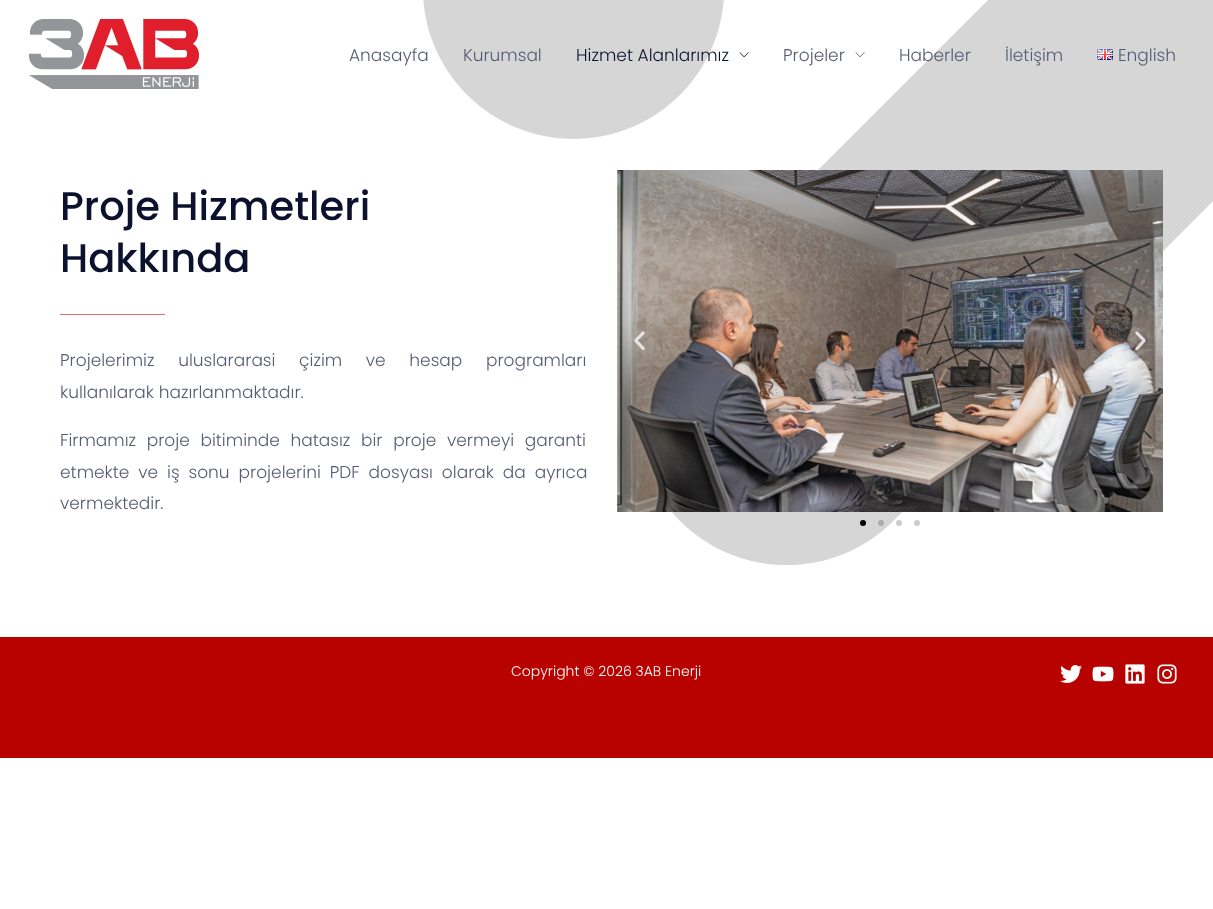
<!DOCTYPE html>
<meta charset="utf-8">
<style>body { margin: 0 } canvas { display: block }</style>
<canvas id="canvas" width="1213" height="909"></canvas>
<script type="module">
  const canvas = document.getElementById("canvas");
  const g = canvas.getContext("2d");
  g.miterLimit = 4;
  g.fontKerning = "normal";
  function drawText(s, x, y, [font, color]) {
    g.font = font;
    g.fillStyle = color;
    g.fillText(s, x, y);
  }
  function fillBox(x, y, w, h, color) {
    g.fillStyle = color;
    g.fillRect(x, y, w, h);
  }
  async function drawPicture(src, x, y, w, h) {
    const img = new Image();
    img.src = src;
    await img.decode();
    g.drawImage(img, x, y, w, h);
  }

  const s1 = ["300 17px Poppins", "#575C74"];
  const s2 = ["300 17px Poppins", "#0C122D"];
  const s3 = ["500 40px Poppins", "#0C122D"];
  const s4 = ["300 14px Poppins", "#FFFFFF"];

  fillBox(0, 0, 1213, 909, "#FFFFFF");
  await drawPicture("pic1.png", 29, 19, 170, 70);
  await drawPicture("pic5.png", 423, 0, 790, 565);
  drawText("Anasayfa", 349, 61, s1);
  drawText("Kurumsal", 463, 61, s1);
  drawText("Hizmet Alanlarımız", 576, 61, s2);
  await drawPicture("pic2.png", 739, 52, 10, 6);
  drawText("Projeler", 783, 61, s1);
  await drawPicture("pic3.png", 855, 52, 10, 6);
  drawText("Haberler", 899, 61, s1);
  drawText("İletişim", 1005, 61, s1);
  await drawPicture("pic4.png", 1097, 49, 16, 11);
  drawText("English", 1118, 61, s1);
  drawText("Proje Hizmetleri", 60, 220, s3);
  drawText("Hakkında", 60, 272, s3);
  fillBox(60, 314, 105, 1, "#DE6F6F");
  g.wordSpacing = "19px";
  drawText("Projelerimiz uluslararasi çizim ve hesap programları", 60, 366, s1);
  g.wordSpacing = "0px";
  drawText("kullanılarak hazırlanmaktadır.", 60, 398, s1);
  g.wordSpacing = "6px";
  drawText("Firmamız proje bitiminde hatasız bir proje vermeyi garanti", 60, 446, s1);
  g.wordSpacing = "4.25px";
  drawText("etmekte ve iş sonu projelerini PDF dosyası olarak da ayrıca", 60, 478, s1);
  g.wordSpacing = "0px";
  drawText("vermektedir.", 60, 509, s1);
  await drawPicture("pic6.png", 617, 170, 546, 342);
  await drawPicture("pic7.png", 634, 331, 11, 20);
  await drawPicture("pic8.png", 1135, 331, 11, 20);
  g.fillStyle = "#000000";
  g.beginPath();
  g.arc(863, 523, 3, 0, Math.PI * 2);
  g.fill();
  g.fillStyle = "#ABABAB";
  g.beginPath();
  g.arc(881, 523, 3, 0, Math.PI * 2);
  g.fill();
  g.fillStyle = "#CCCCCC";
  g.beginPath();
  g.arc(899, 523, 3, 0, Math.PI * 2);
  g.fill();
  g.beginPath();
  g.arc(917, 523, 3, 0, Math.PI * 2);
  g.fill();
  fillBox(0, 637, 1213, 121, "#B70200");
  drawText("Copyright © 2026 3AB Enerji", 511, 676, s4);
  await drawPicture("pic9.png", 1060, 665, 22, 18);
  await drawPicture("pic10.png", 1092, 666, 22, 16);
  await drawPicture("pic11.png", 1125, 664, 20, 20);
  await drawPicture("pic12.png", 1157, 664, 20, 20);
</script>
